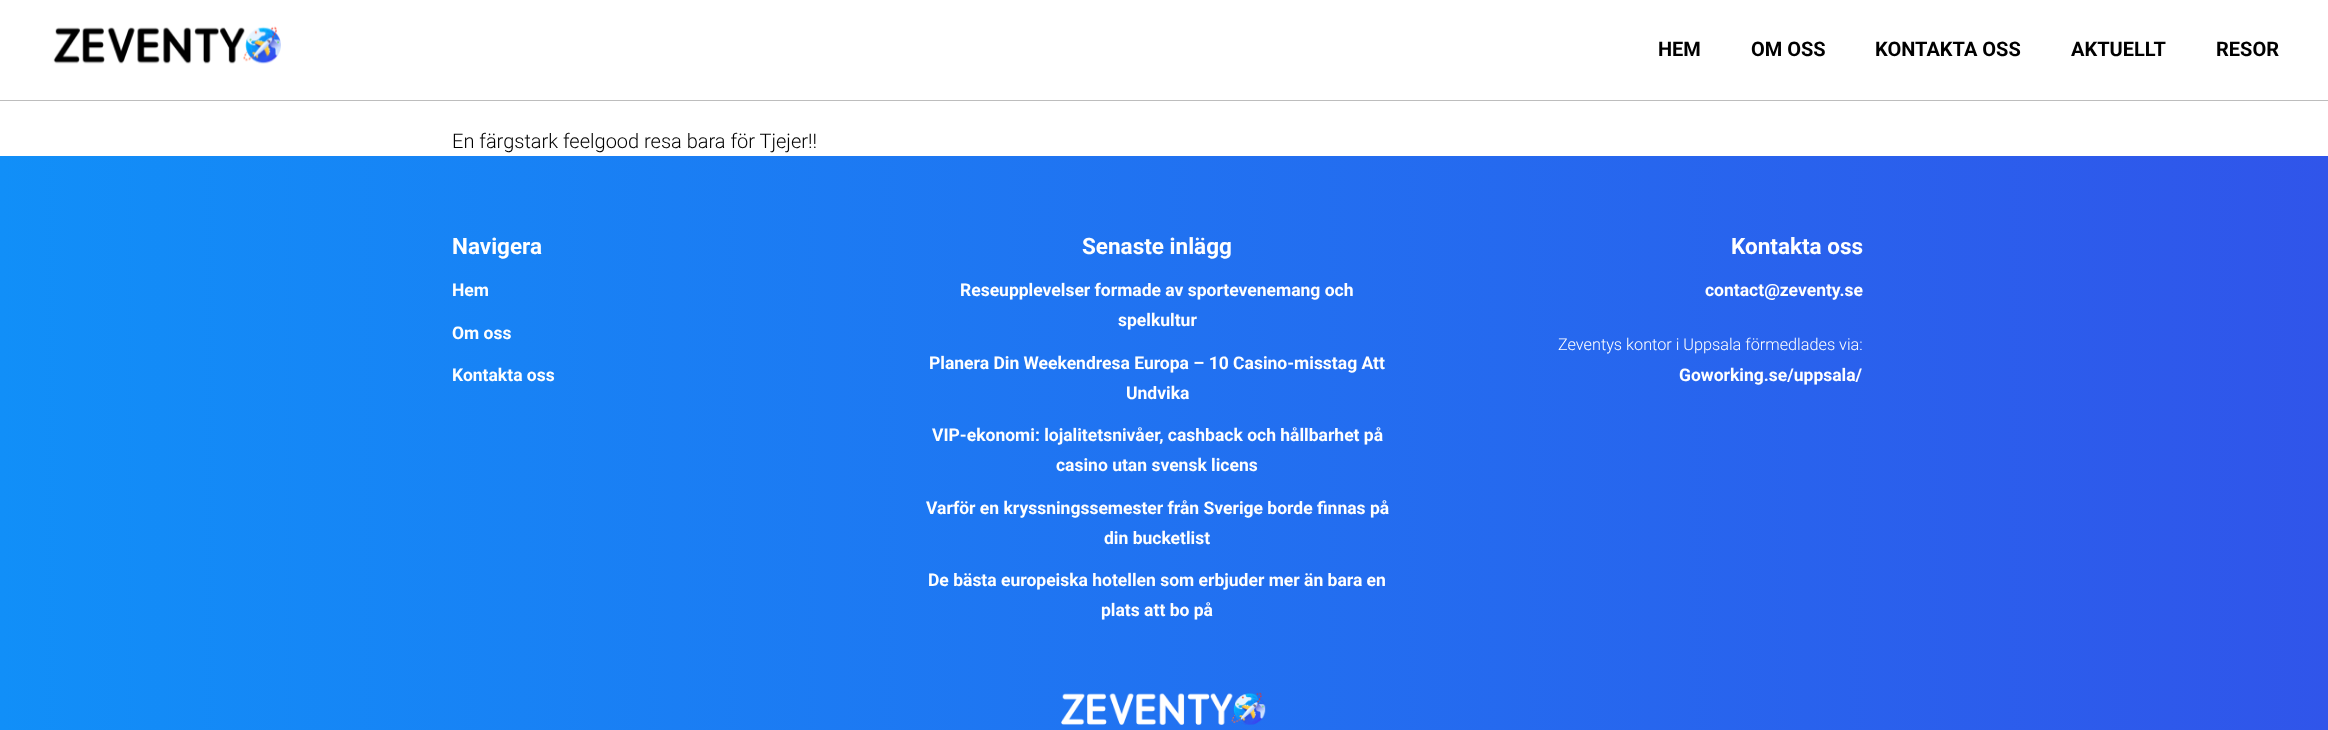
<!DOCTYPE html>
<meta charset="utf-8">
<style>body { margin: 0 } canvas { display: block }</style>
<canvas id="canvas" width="2328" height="730"></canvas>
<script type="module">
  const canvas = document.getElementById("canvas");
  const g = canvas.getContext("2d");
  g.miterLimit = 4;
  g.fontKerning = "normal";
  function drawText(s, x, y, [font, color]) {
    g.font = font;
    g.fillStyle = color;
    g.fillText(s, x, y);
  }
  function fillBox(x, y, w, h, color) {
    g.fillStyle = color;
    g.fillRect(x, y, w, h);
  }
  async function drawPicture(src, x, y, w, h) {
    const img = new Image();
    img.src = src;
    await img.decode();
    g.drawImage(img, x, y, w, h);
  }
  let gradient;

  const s1 = ["bold 20px Roboto", "#000000"];
  const s2 = ["300 20px Roboto", "#000000"];
  const s3 = ["bold 22.5px Roboto", "#FFFFFF"];
  const s4 = ["bold 17.5px Roboto", "#FFFFFF"];
  const s5 = ["300 16.25px Roboto", "#FFFFFF"];

  fillBox(0, 0, 2328, 730, "#FFFFFF");
  fillBox(0, 100, 2328, 1, "#BDBDBD");
  await drawPicture("pic1.png", 53, 26, 228, 38);
  drawText("HEM", 1658, 56, s1);
  drawText("OM OSS", 1751, 56, s1);
  drawText("KONTAKTA OSS", 1875, 56, s1);
  drawText("AKTUELLT", 2071, 56, s1);
  drawText("RESOR", 2216, 56, s1);
  drawText("En färgstark feelgood resa bara för Tjejer!!", 452, 148, s2);
  gradient = g.createLinearGradient(0, 489, 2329, 489);
  gradient.addColorStop(0, "#118FF8");
  gradient.addColorStop(1, "#3055EA");
  g.fillStyle = gradient;
  g.fillRect(0, 156, 2328, 574);
  drawText("Navigera", 452, 254, s3);
  drawText("Hem", 452, 296, s4);
  drawText("Om oss", 452, 339, s4);
  drawText("Kontakta oss", 452, 381, s4);
  drawText("Senaste inlägg", 1082, 254, s3);
  drawText("Reseupplevelser formade av sportevenemang och", 960, 296, s4);
  drawText("spelkultur", 1118, 326, s4);
  drawText("Planera Din Weekendresa Europa – 10 Casino-misstag Att", 929, 369, s4);
  drawText("Undvika", 1126, 399, s4);
  drawText("VIP-ekonomi: lojalitetsnivåer, cashback och hållbarhet på", 932, 441, s4);
  drawText("casino utan svensk licens", 1056, 471, s4);
  drawText("Varför en kryssningssemester från Sverige borde finnas på", 926, 514, s4);
  drawText("din bucketlist", 1104, 544, s4);
  drawText("De bästa europeiska hotellen som erbjuder mer än bara en", 928, 586, s4);
  drawText("plats att bo på", 1101, 616, s4);
  drawText("Kontakta oss", 1731, 254, s3);
  drawText("contact@zeventy.se", 1705, 296, s4);
  drawText("Zeventys kontor i Uppsala förmedlades via:", 1558, 350, s5);
  drawText("Goworking.se/uppsala/", 1679, 381, s4);
  await drawPicture("pic2.png", 1061, 692, 205, 33);
</script>
